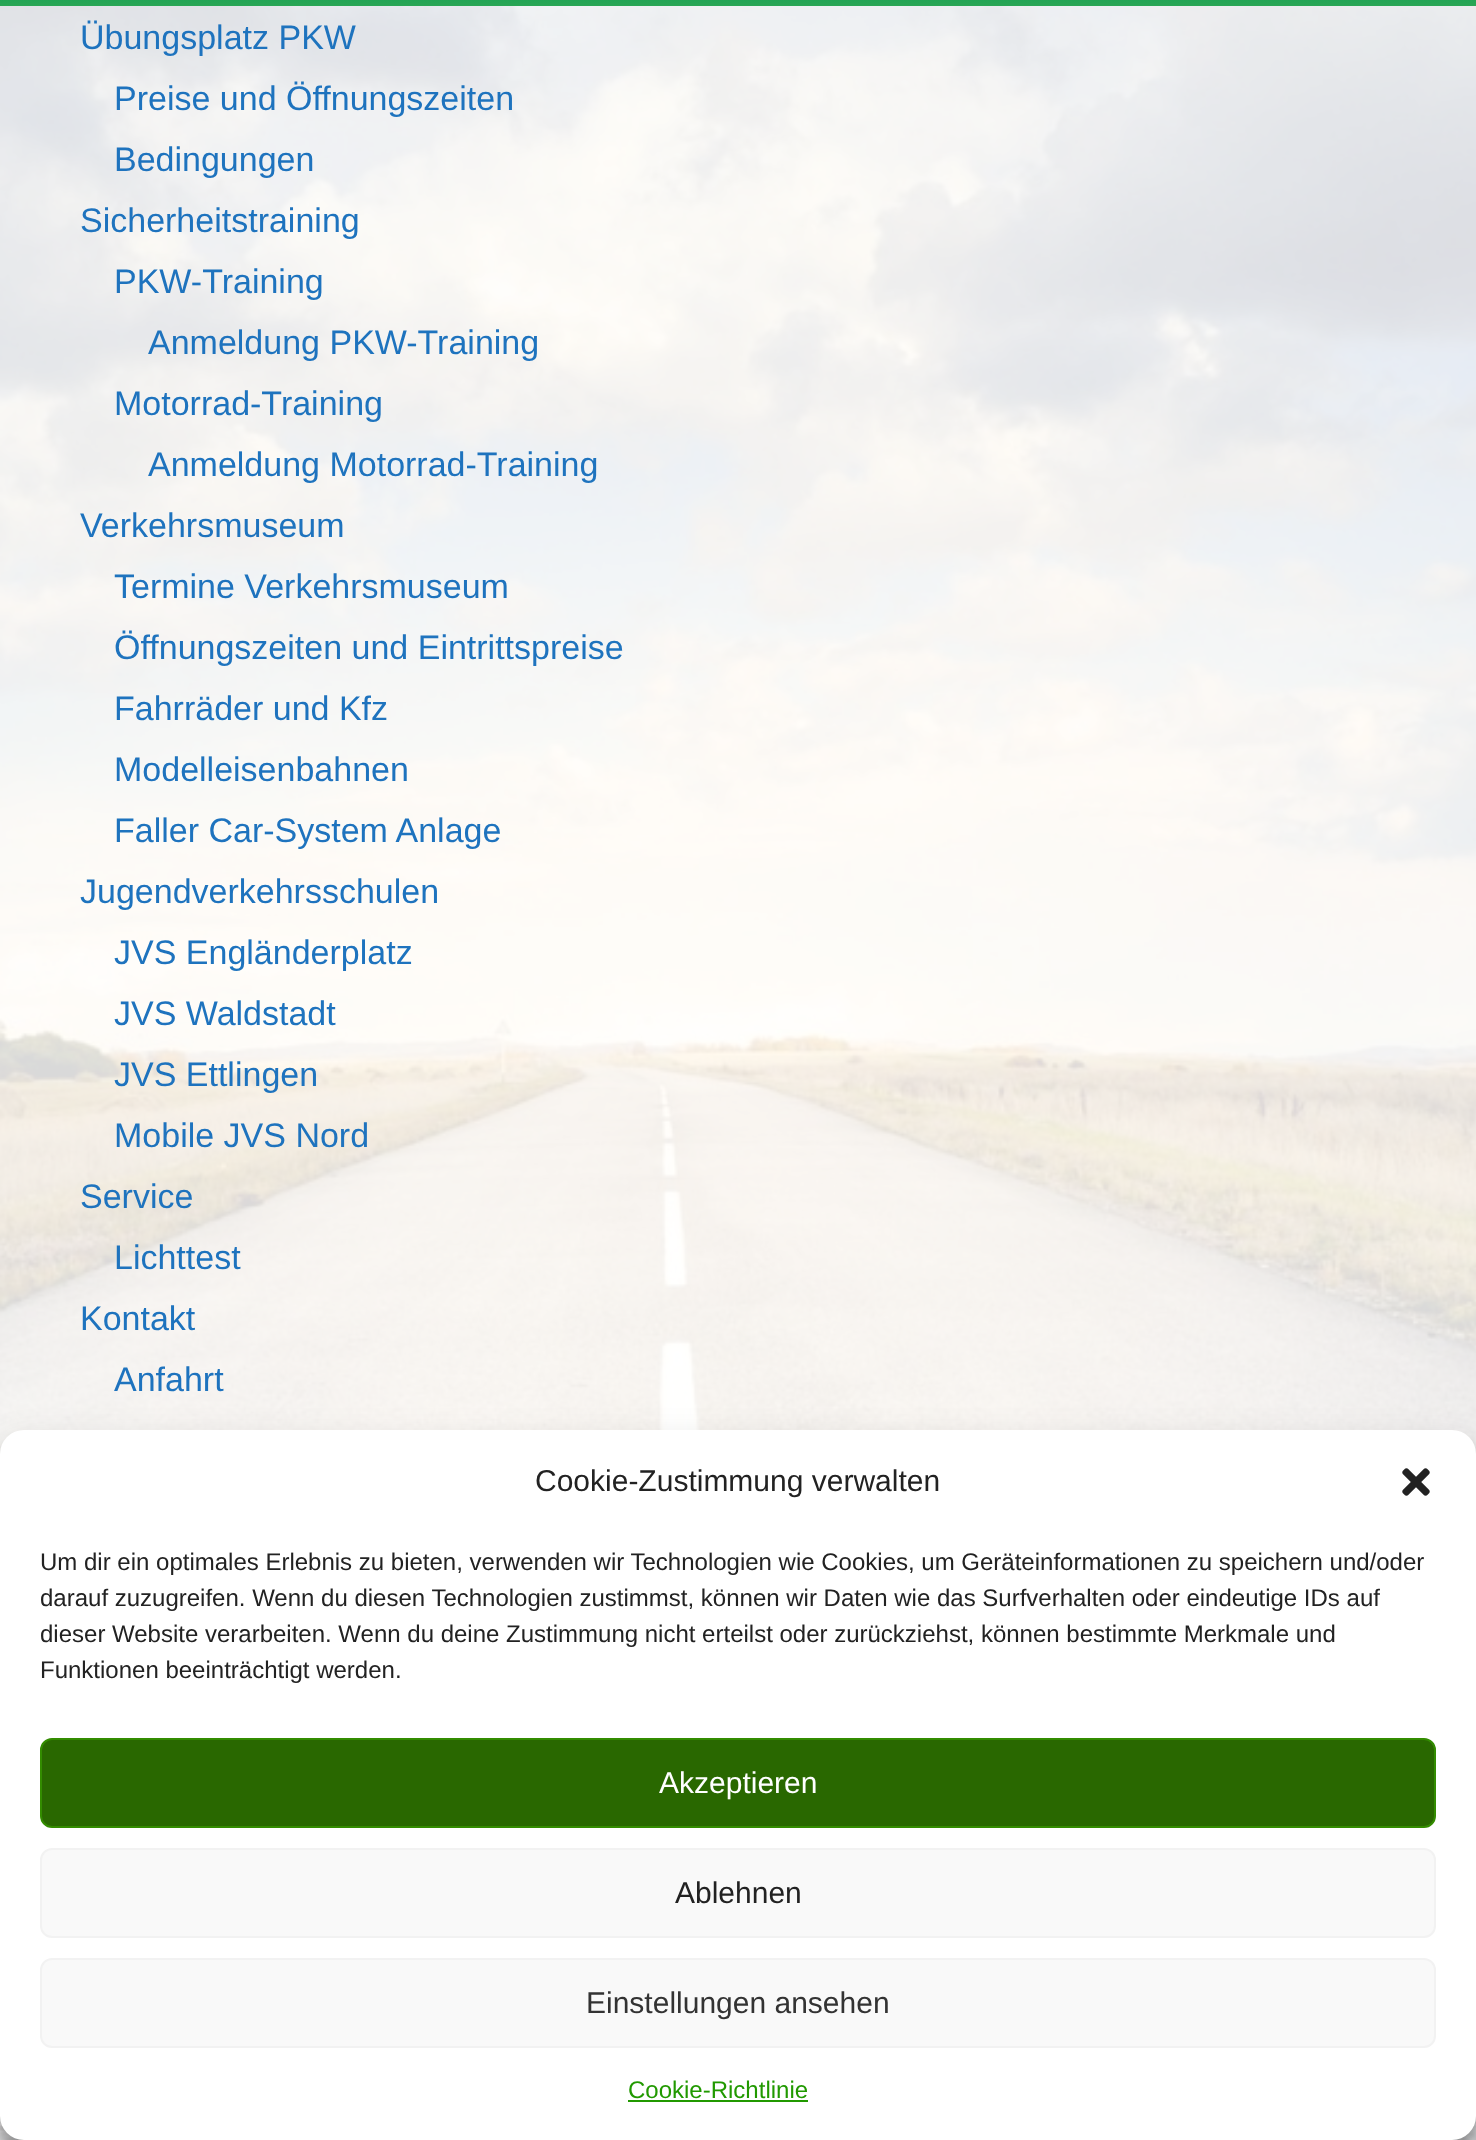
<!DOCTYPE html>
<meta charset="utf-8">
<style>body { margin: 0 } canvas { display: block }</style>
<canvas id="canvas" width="1476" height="2140"></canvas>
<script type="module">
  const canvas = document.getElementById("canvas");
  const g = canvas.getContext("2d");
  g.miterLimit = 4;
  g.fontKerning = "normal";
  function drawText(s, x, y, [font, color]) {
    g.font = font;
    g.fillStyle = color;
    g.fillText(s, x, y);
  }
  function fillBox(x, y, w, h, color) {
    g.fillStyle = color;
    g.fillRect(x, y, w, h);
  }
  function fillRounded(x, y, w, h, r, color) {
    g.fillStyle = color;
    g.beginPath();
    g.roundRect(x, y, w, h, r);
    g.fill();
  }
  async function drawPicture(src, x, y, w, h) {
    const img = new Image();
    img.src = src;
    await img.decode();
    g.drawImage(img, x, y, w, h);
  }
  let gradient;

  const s1 = ["34px Liberation Sans", "#1E73BE"];
  const s2 = ["30px Liberation Sans", "#222222"];
  const s3 = ["24px Liberation Sans", "#222222"];
  const s4 = ["30px Liberation Sans", "#FFFFFF"];
  const s5 = ["30px Liberation Sans", "#333333"];
  const s6 = ["24px Liberation Sans", "#219900"];

  fillBox(0, 0, 1476, 2140, "#FFFFFF");
  await drawPicture("pic1.png", 0, 6, 1476, 2134);
  gradient = g.createLinearGradient(738, 0, 738, 68);
  gradient.addColorStop(0, "#23A455");
  gradient.addColorStop(1, "#6BBC53");
  g.fillStyle = gradient;
  g.fillRect(0, 0, 1476, 6);
  fillBox(0, 6, 1476, 1448, "rgba(255, 255, 255, 0.85)");
  drawText("Übungsplatz PKW", 80, 49, s1);
  drawText("Preise und Öffnungszeiten", 114, 110, s1);
  drawText("Bedingungen", 114, 171, s1);
  drawText("Sicherheitstraining", 80, 232, s1);
  drawText("PKW-Training", 114, 293, s1);
  drawText("Anmeldung PKW-Training", 148, 354, s1);
  drawText("Motorrad-Training", 114, 415, s1);
  drawText("Anmeldung Motorrad-Training", 148, 476, s1);
  drawText("Verkehrsmuseum", 80, 537, s1);
  drawText("Termine Verkehrsmuseum", 114, 598, s1);
  drawText("Öffnungszeiten und Eintrittspreise", 114, 659, s1);
  drawText("Fahrräder und Kfz", 114, 720, s1);
  drawText("Modelleisenbahnen", 114, 781, s1);
  drawText("Faller Car-System Anlage", 114, 842, s1);
  drawText("Jugendverkehrsschulen", 80, 903, s1);
  drawText("JVS Engländerplatz", 114, 964, s1);
  drawText("JVS Waldstadt", 114, 1025, s1);
  drawText("JVS Ettlingen", 114, 1086, s1);
  drawText("Mobile JVS Nord", 114, 1147, s1);
  drawText("Service", 80, 1208, s1);
  drawText("Lichttest", 114, 1269, s1);
  drawText("Kontakt", 80, 1330, s1);
  drawText("Anfahrt", 114, 1391, s1);
  fillBox(0, 2116, 1476, 24, "rgba(255, 255, 255, 0.8)");
  g.fillStyle = "rgba(0, 0, 0, 0.23)";
  g.filter = "blur(6px)";
  g.beginPath();
  g.roundRect(0, 1442, 1476, 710, 24);
  g.fill();
  g.filter = "none";
  g.fillStyle = "rgba(0, 0, 0, 0.19)";
  g.filter = "blur(20px)";
  g.beginPath();
  g.roundRect(0, 1450, 1476, 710, 24);
  g.fill();
  g.filter = "none";
  fillRounded(0, 1430, 1476, 710, 24, "#FFFFFF");
  drawText("Cookie-Zustimmung verwalten", 535, 1491, s2);
  await drawPicture("pic2.png", 1402, 1468, 28, 28);
  drawText("Um dir ein optimales Erlebnis zu bieten, verwenden wir Technologien wie Cookies, um Geräteinformationen zu speichern und/oder", 40, 1570, s3);
  drawText("darauf zuzugreifen. Wenn du diesen Technologien zustimmst, können wir Daten wie das Surfverhalten oder eindeutige IDs auf", 40, 1606, s3);
  drawText("dieser Website verarbeiten. Wenn du deine Zustimmung nicht erteilst oder zurückziehst, können bestimmte Merkmale und", 40, 1642, s3);
  drawText("Funktionen beeinträchtigt werden.", 40, 1678, s3);
  g.fillStyle = "#296800";
  g.beginPath();
  g.roundRect(41, 1739, 1394, 88, 11);
  g.fill();
  g.strokeStyle = "#338C00";
  g.lineWidth = 2;
  g.stroke();
  drawText("Akzeptieren", 659, 1793, s4);
  g.fillStyle = "#F9F9F9";
  g.beginPath();
  g.roundRect(41, 1849, 1394, 88, 11);
  g.fill();
  g.strokeStyle = "#F2F2F2";
  g.stroke();
  drawText("Ablehnen", 675, 1903, s2);
  g.fillStyle = "#F9F9F9";
  g.beginPath();
  g.roundRect(41, 1959, 1394, 88, 11);
  g.fill();
  g.stroke();
  drawText("Einstellungen ansehen", 586, 2013, s5);
  drawText("Cookie-Richtlinie", 628, 2098, s6);
  fillBox(628, 2100, 180, 2, "#219900");
</script>
